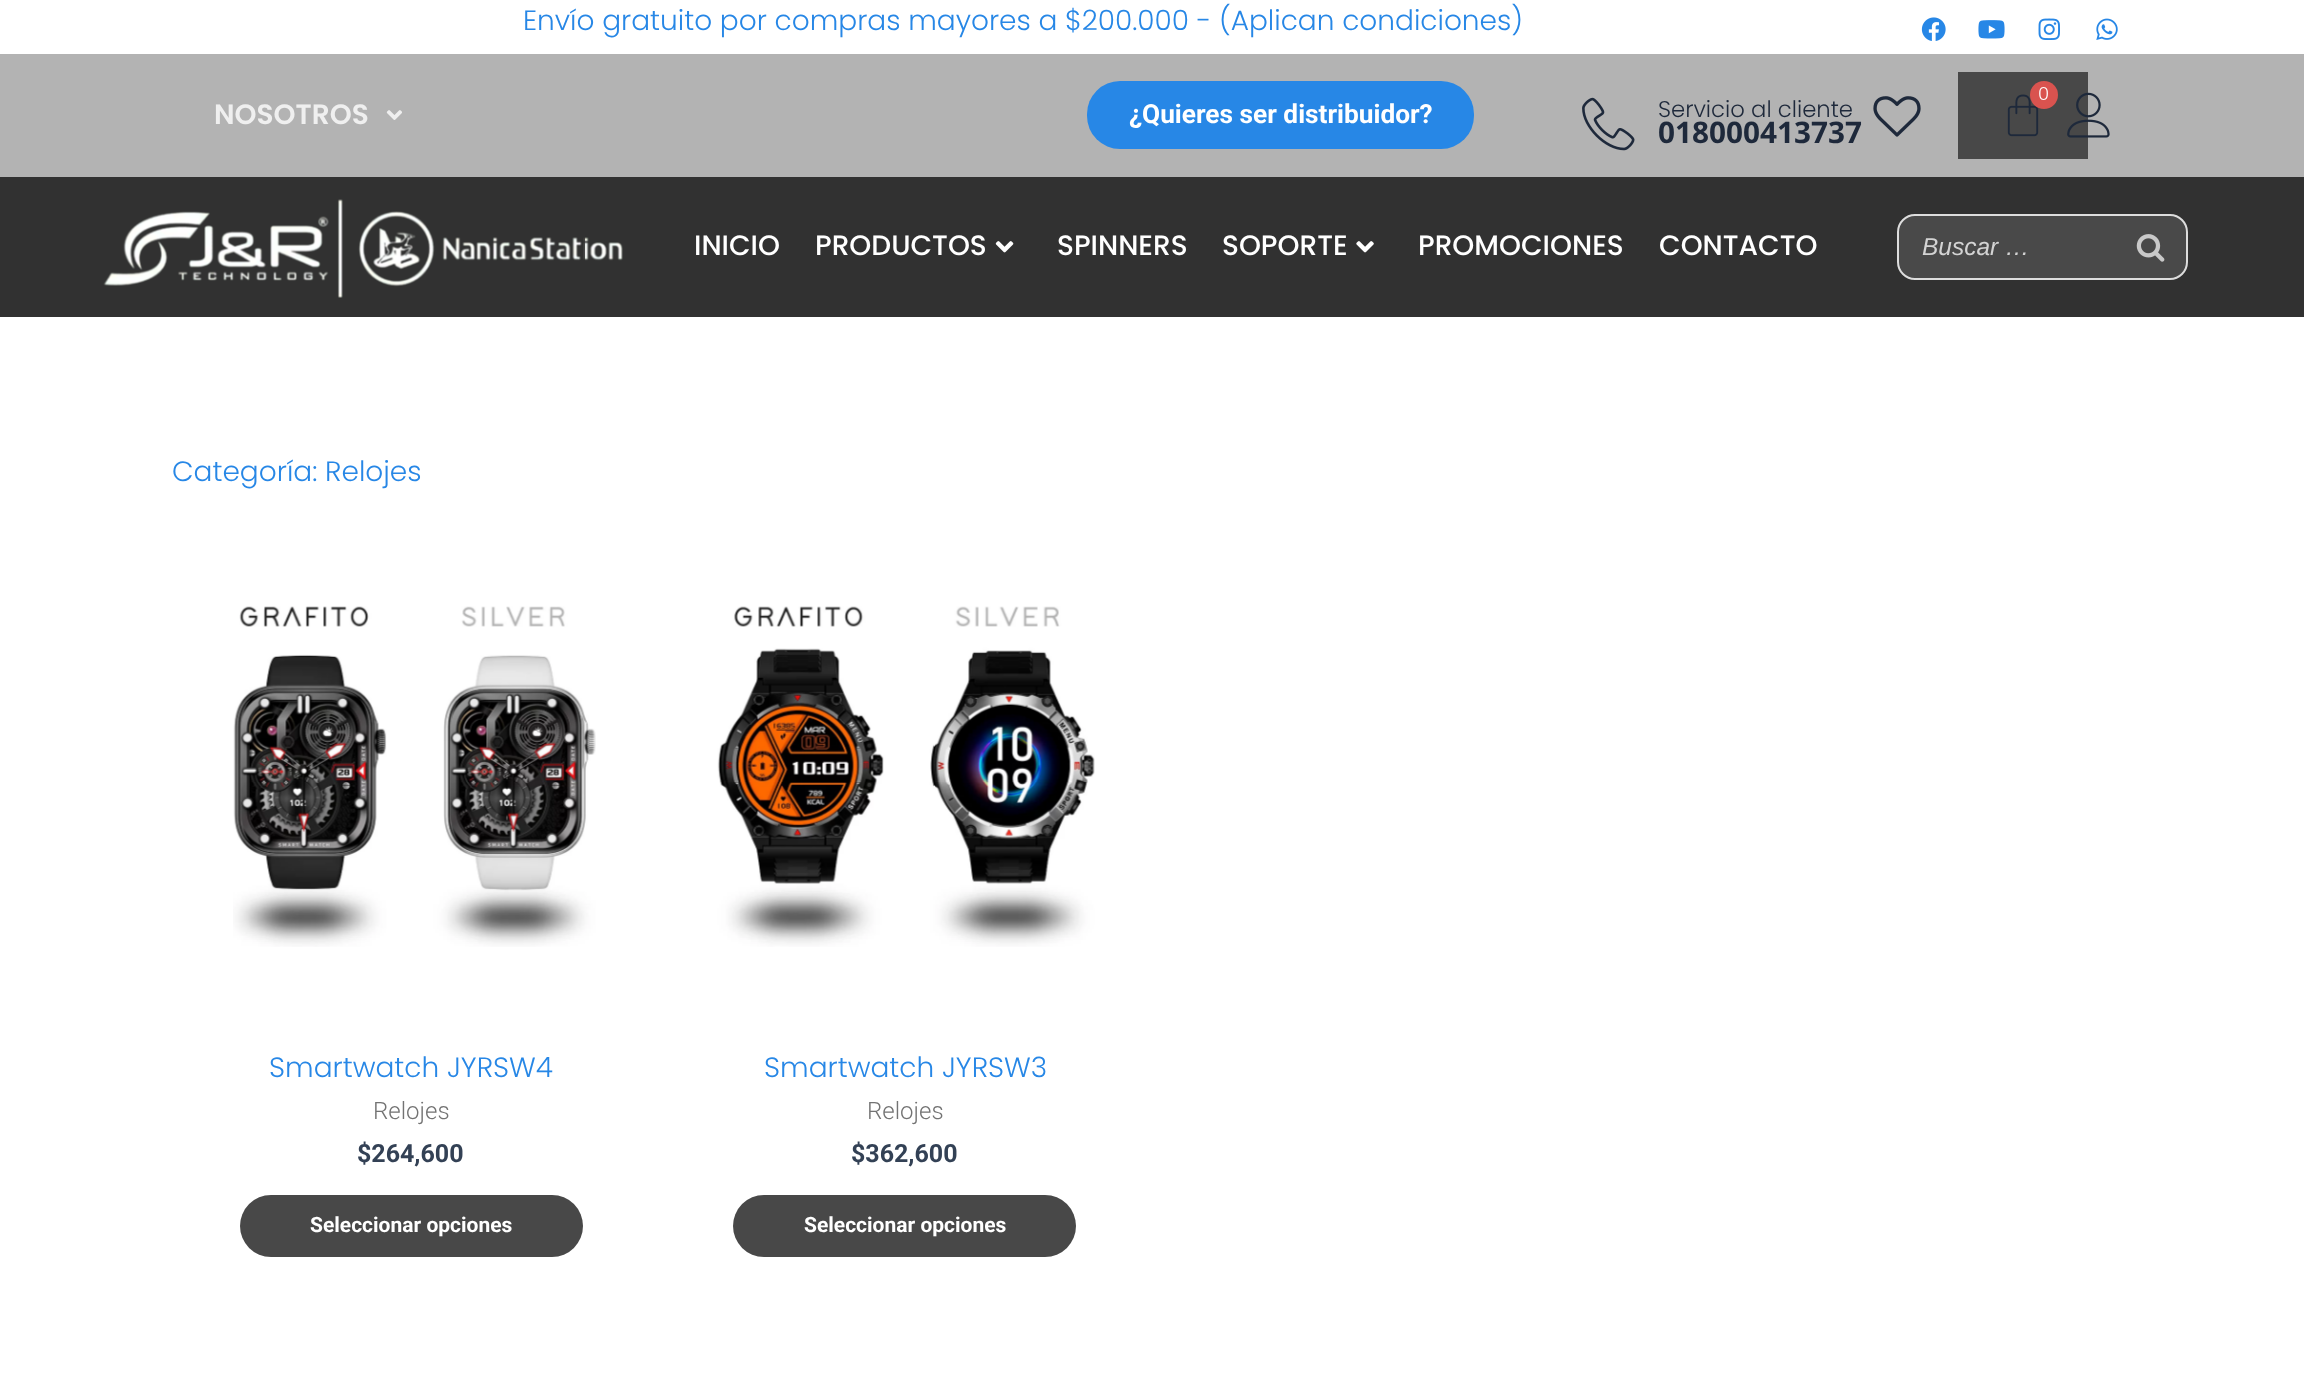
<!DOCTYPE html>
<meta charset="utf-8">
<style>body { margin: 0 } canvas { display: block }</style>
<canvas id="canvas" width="2304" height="1373"></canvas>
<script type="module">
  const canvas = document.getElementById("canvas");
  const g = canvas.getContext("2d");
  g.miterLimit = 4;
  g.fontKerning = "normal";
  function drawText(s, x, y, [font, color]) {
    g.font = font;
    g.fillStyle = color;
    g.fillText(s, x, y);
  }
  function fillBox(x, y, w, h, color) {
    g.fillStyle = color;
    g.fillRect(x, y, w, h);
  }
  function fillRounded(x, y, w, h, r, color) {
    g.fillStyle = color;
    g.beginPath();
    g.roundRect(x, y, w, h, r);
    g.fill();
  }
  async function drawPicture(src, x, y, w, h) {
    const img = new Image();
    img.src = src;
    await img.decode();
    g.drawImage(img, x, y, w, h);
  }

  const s1 = ["300 28px Poppins", "#2787E6"];
  const s2 = ["600 28px Poppins", "#EFEFEF"];
  const s3 = ["bold 26.25px Roboto", "#FFFFFF"];
  const s4 = ["300 22.75px Poppins", "#1E293B"];
  const s5 = ["bold 29.75px Open Sans", "#1E293B"];
  const s6 = ["300 18px Poppins", "#FFFFFF"];
  const s7 = ["500 28px Poppins", "#FFFFFF"];
  const s8 = ["italic 24.5px Liberation Sans", "#D3D3D3"];
  const s9 = ["300 24px Roboto", "#737373"];
  const s10 = ["bold 25px Roboto", "#334155"];
  const s11 = ["bold 21px Roboto", "#FFFFFF"];

  fillBox(0, 0, 2304, 1373, "#FFFFFF");
  drawText("Envío gratuito por compras mayores a $200.000 - (Aplican condiciones)", 523, 30, s1);
  await drawPicture("pic1.png", 1921, 17, 25, 24);
  await drawPicture("pic2.png", 1978, 20, 27, 19);
  await drawPicture("pic3.png", 2038, 18, 22, 22);
  await drawPicture("pic4.png", 2096, 18, 22, 22);
  fillBox(0, 54, 2304, 123, "#B3B3B3");
  drawText("NOSOTROS", 214, 124, s2);
  await drawPicture("pic5.png", 386, 110, 16, 10);
  fillRounded(1087, 81, 387, 68, 33, "#2787E6");
  drawText("¿Quieres ser distribuidor?", 1129, 123, s3);
  await drawPicture("pic6.png", 1582, 97, 53, 54);
  drawText("Servicio al cliente", 1658, 117, s4);
  drawText("018000413737", 1658, 143, s5);
  await drawPicture("pic7.png", 1873, 96, 48, 41);
  fillBox(1958, 72, 130, 87, "#484848");
  await drawPicture("pic8.png", 2007, 94, 32, 43);
  g.fillStyle = "#D9534F";
  g.beginPath();
  g.arc(2044, 95, 14, 0, Math.PI * 2);
  g.fill();
  drawText("0", 2038, 100, s6);
  await drawPicture("pic9.png", 2067, 92, 43, 46);
  fillBox(0, 177, 2304, 140, "#313131");
  await drawPicture("pic10.png", 103, 199, 520, 99);
  drawText("INICIO", 694, 255, s7);
  drawText("PRODUCTOS", 815, 255, s7);
  await drawPicture("pic11.png", 995, 241, 19, 12);
  drawText("SPINNERS", 1057, 255, s7);
  drawText("SOPORTE", 1222, 255, s7);
  await drawPicture("pic12.png", 1356, 241, 18, 12);
  drawText("PROMOCIONES", 1418, 255, s7);
  drawText("CONTACTO", 1659, 255, s7);
  g.fillStyle = "#494949";
  g.beginPath();
  g.roundRect(1898, 215, 289, 64, 17);
  g.fill();
  g.strokeStyle = "#DDDDDD";
  g.lineWidth = 2;
  g.stroke();
  drawText("Buscar …", 1922, 255, s8);
  await drawPicture("pic13.png", 2136, 234, 29, 28);
  drawText("Categoría: Relojes", 172, 481, s1);
  await drawPicture("pic14.png", 233, 606, 363, 341);
  drawText("Smartwatch JYRSW4", 269, 1077, s1);
  drawText("Relojes", 373, 1119, s9);
  drawText("$264,600", 357, 1162, s10);
  fillRounded(240, 1195, 343, 62, 31, "#484848");
  drawText("Seleccionar opciones", 310, 1232, s11);
  await drawPicture("pic15.png", 717, 606, 378, 341);
  drawText("Smartwatch JYRSW3", 764, 1077, s1);
  drawText("Relojes", 867, 1119, s9);
  drawText("$362,600", 851, 1162, s10);
  fillRounded(733, 1195, 343, 62, 31, "#484848");
  drawText("Seleccionar opciones", 804, 1232, s11);
</script>
